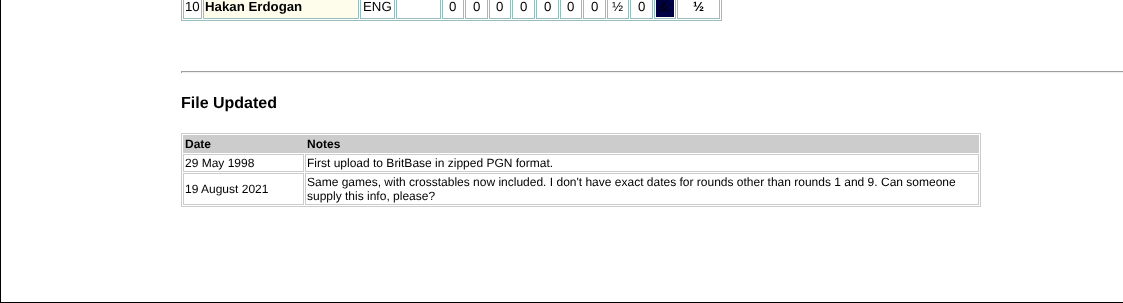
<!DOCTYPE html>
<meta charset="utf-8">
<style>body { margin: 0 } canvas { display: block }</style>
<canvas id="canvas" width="1123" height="303"></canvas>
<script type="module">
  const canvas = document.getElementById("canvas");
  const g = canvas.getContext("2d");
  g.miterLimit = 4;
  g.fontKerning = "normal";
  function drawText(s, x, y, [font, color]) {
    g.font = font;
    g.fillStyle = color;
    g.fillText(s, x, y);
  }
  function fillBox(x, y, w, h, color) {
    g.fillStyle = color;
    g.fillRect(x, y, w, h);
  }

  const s1 = ["13.25px Liberation Sans", "#000000"];
  const s2 = ["bold 13.25px Liberation Sans", "#000000"];
  const s3 = ["bold 16px Liberation Sans", "#000000"];
  const s4 = ["bold 12px Liberation Sans", "#000000"];
  const s5 = ["12px Liberation Sans", "#000000"];

  fillBox(0, 0, 1123, 303, "#FFFFFF");
  g.strokeStyle = "#000000";
  g.strokeRect(0.5, -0.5, 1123, 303);
  g.strokeStyle = "#97BDBF";
  g.strokeRect(181.5, -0.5, 540, 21);
  g.strokeRect(183.5, -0.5, 18, 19);
  drawText("10", 185, 11, s1);
  g.fillStyle = "#FEFDEC";
  g.beginPath();
  g.rect(203.5, -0.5, 155, 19);
  g.fill();
  g.stroke();
  drawText("Hakan Erdogan", 205, 11, s2);
  g.strokeRect(360.5, -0.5, 34, 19);
  drawText("ENG", 363, 11, s1);
  g.strokeRect(396.5, -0.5, 44, 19);
  g.strokeRect(442.5, -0.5, 21, 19);
  drawText("0", 449, 11, s1);
  g.strokeRect(465.5, -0.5, 22, 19);
  drawText("0", 473, 11, s1);
  g.strokeRect(489.5, -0.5, 21, 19);
  drawText("0", 496, 11, s1);
  g.strokeRect(512.5, -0.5, 22, 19);
  drawText("0", 520, 11, s1);
  g.strokeRect(536.5, -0.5, 22, 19);
  drawText("0", 544, 11, s1);
  g.strokeRect(560.5, -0.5, 21, 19);
  drawText("0", 567, 11, s1);
  g.strokeRect(583.5, -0.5, 22, 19);
  drawText("0", 591, 11, s1);
  g.strokeRect(607.5, -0.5, 21, 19);
  drawText("½", 612, 11, s1);
  g.strokeRect(630.5, -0.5, 22, 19);
  drawText("0", 638, 11, s1);
  g.strokeRect(654.5, -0.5, 21, 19);
  fillBox(656, 0, 18, 17, "#000044");
  drawText("&;", 659, 11, s1);
  g.strokeRect(677.5, -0.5, 42, 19);
  drawText("½", 693, 11, s2);
  fillBox(181, 71, 942, 1, "#9F9F9F");
  fillBox(181, 72, 942, 1, "#EEEEEE");
  fillBox(181, 71, 1, 2, "#9F9F9F");
  drawText("File Updated", 181, 108, s3);
  g.strokeStyle = "#CCCCCC";
  g.strokeRect(181.5, 133.5, 799, 73);
  fillBox(183, 135, 796, 18, "#CCCCCC");
  drawText("Date", 185, 148, s4);
  drawText("Notes", 307, 148, s4);
  g.strokeRect(183.5, 154.5, 120, 17);
  drawText("29 May 1998", 185, 167, s5);
  g.strokeRect(305.5, 154.5, 673, 17);
  drawText("First upload to BritBase in zipped PGN format.", 307, 167, s5);
  g.strokeRect(183.5, 173.5, 120, 31);
  drawText("19 August 2021", 185, 193, s5);
  g.strokeRect(305.5, 173.5, 673, 31);
  drawText("Same games, with crosstables now included. I don't have exact dates for rounds other than rounds 1 and 9. Can someone", 307, 186, s5);
  drawText("supply this info, please?", 307, 200, s5);
</script>
